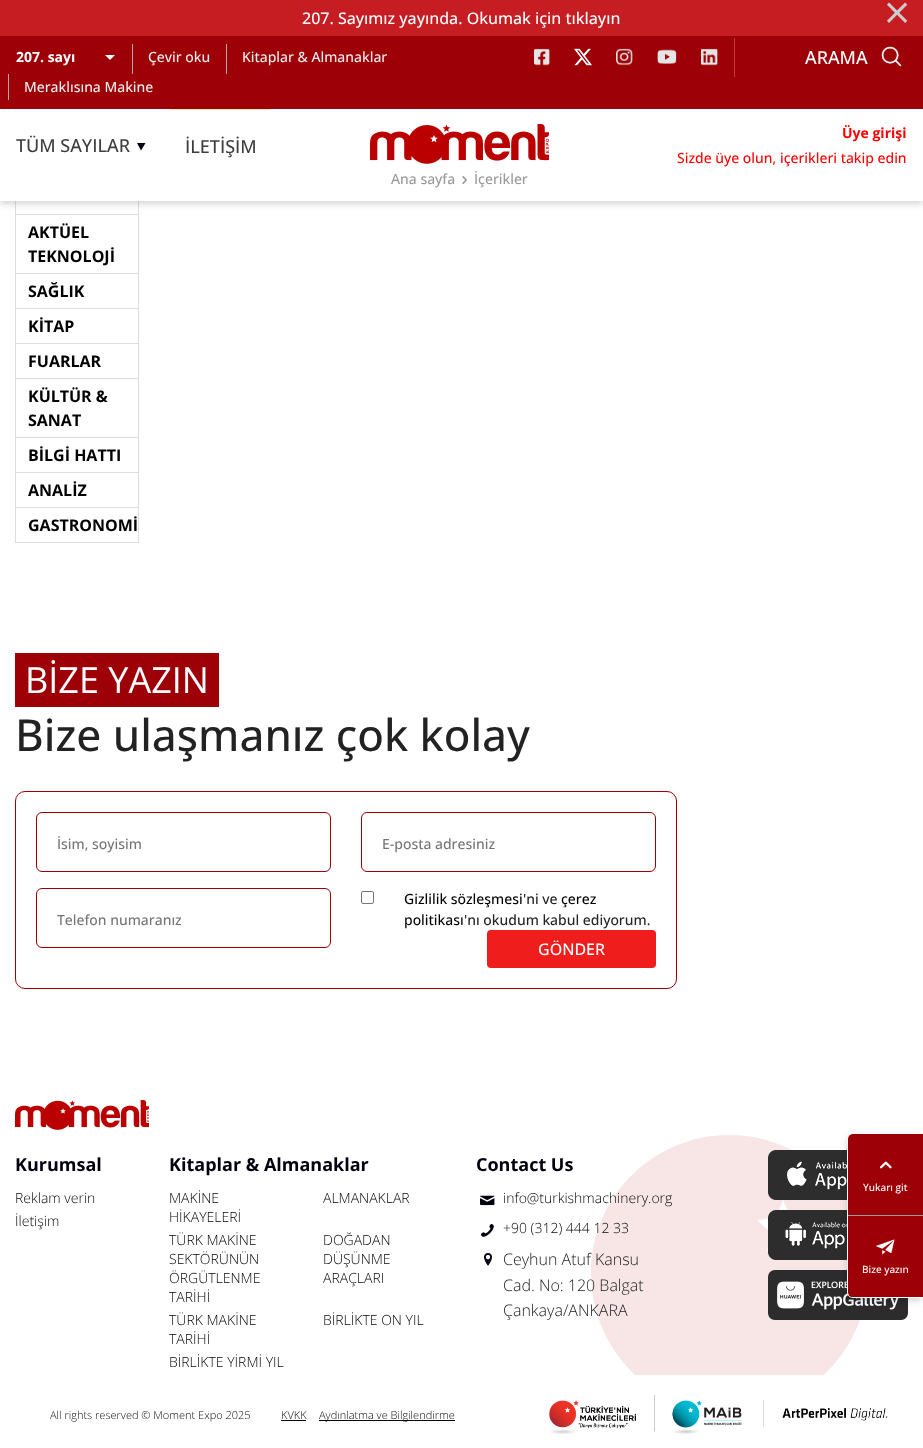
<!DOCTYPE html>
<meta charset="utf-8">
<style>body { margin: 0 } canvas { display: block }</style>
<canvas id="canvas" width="923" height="1448"></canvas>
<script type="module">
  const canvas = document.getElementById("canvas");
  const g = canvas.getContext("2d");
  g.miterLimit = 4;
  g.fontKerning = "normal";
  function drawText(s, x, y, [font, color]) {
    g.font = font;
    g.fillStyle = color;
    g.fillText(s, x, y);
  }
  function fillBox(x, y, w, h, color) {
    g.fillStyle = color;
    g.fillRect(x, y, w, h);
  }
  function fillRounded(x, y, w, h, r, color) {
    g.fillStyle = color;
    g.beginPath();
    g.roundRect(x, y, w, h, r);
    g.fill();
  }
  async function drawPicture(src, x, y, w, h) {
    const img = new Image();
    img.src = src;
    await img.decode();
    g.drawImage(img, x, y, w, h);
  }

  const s1 = ["500 16px Open Sans", "#FFFFFF"];
  const s2 = ["36px DejaVu Sans", "#CCCCCC"];
  const s3 = ["bold 14px Open Sans", "#FFFFFF"];
  const s4 = ["500 14px Open Sans", "#EEEEEE"];
  const s5 = ["500 18px Open Sans", "#FFFFFF"];
  const s6 = ["500 18px Open Sans", "#3E3E3E"];
  const s7 = ["bold 14px Open Sans", "#FF0000"];
  const s8 = ["500 14px Open Sans", "#FF0000"];
  const s9 = ["500 14px Open Sans", "#999998"];
  const s10 = ["bold 16px Open Sans", "#000000"];
  const s11 = ["36px Open Sans", "#FFFFFF"];
  const s12 = ["500 44px Open Sans", "#222222"];
  const s13 = ["500 14px Open Sans", "#757575"];
  const s14 = ["500 14px Open Sans", "#000000"];
  const s15 = ["500 14px Open Sans", "#222222"];
  const s16 = ["bold 18px Open Sans", "#000011"];
  const s17 = ["300 14px Open Sans", "#070606"];
  const s18 = ["300 16px Open Sans", "#222222"];
  const s19 = ["300 11px Open Sans", "#070606"];
  const s20 = ["500 10px Open Sans", "#FFFFFF"];

  fillBox(0, 0, 923, 1448, "#FFFFFF");
  g.strokeStyle = "#DDDDDD";
  g.strokeRect(15.5, -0.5, 123, 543);
  g.fillStyle = "rgba(0, 0, 0, 0.16)";
  g.filter = "blur(3px)";
  g.beginPath();
  g.rect(0, 3, 923, 201);
  g.fill();
  g.filter = "none";
  fillBox(0, 109, 923, 92, "#FFFFFF");
  fillBox(0, 0, 923, 36, "#C61D23");
  drawText("207. Sayımız yayında. Okumak için tıklayın", 302, 24, s1);
  drawText("⨯", 882, 24, s2);
  fillBox(0, 36, 923, 73, "#9D0007");
  g.fillStyle = "#FFFFFF";
  g.beginPath();
  g.moveTo(105, 55);
  g.lineTo(110, 60);
  g.lineTo(115, 55);
  g.closePath();
  g.fill();
  drawText("207. sayı", 16, 62, s3);
  fillBox(132, 44, 1, 30, "#AAAAAA");
  drawText("Çevir oku", 148, 62, s4);
  fillBox(226, 44, 1, 30, "#AAAAAA");
  drawText("Kitaplar & Almanaklar", 242, 62, s4);
  fillBox(8, 74, 1, 26, "#AAAAAA");
  drawText("Meraklısına Makine", 24, 92, s4);
  await drawPicture("pic1.png", 534, 48, 16, 18);
  await drawPicture("pic2.png", 574, 48, 18, 18);
  await drawPicture("pic3.png", 616, 48, 17, 18);
  await drawPicture("pic4.png", 657, 49, 20, 15);
  await drawPicture("pic5.png", 701, 48, 17, 18);
  fillBox(734, 38, 1, 39, "#C0383D");
  drawText("ARAMA", 805, 64, s5);
  await drawPicture("pic6.png", 881, 46, 21, 21);
  drawText("TÜM SAYILAR", 16, 152, s6);
  g.fillStyle = "#000011";
  g.beginPath();
  g.moveTo(145.5, 143);
  g.lineTo(141, 150.5);
  g.lineTo(137, 143);
  g.closePath();
  g.fill();
  fillBox(170, 109, 101, 1, "#F9E6B8");
  drawText("İLETİŞİM", 185, 153, s6);
  await drawPicture("pic7.png", 370, 124, 179, 40);
  drawText("Üye girişi", 842, 138, s7);
  drawText("Sizde üye olun, içerikleri takip edin", 677, 163, s8);
  drawText("Ana sayfa", 391, 184, s9);
  await drawPicture("pic8.png", 462, 176, 5, 8);
  drawText("İçerikler", 474, 184, s9);
  fillBox(16, 214, 122, 1, "#DDDDDD");
  drawText("AKTÜEL", 28, 238, s10);
  drawText("TEKNOLOJİ", 28, 262, s10);
  fillBox(16, 273, 122, 1, "#DDDDDD");
  drawText("SAĞLIK", 28, 297, s10);
  fillBox(16, 308, 122, 1, "#DDDDDD");
  drawText("KİTAP", 28, 332, s10);
  fillBox(16, 343, 122, 1, "#DDDDDD");
  drawText("FUARLAR", 28, 367, s10);
  fillBox(16, 378, 122, 1, "#DDDDDD");
  drawText("KÜLTÜR &", 28, 402, s10);
  drawText("SANAT", 28, 426, s10);
  fillBox(16, 437, 122, 1, "#DDDDDD");
  drawText("BİLGİ HATTI", 28, 461, s10);
  fillBox(16, 472, 122, 1, "#DDDDDD");
  drawText("ANALİZ", 28, 496, s10);
  fillBox(16, 507, 122, 1, "#DDDDDD");
  drawText("GASTRONOMİ", 28, 531, s10);
  fillBox(15, 653, 204, 54, "#9D0006");
  drawText("BİZE YAZIN", 25, 693, s11);
  drawText("Bize ulaşmanız çok kolay", 15, 751, s12);
  g.beginPath();
  g.roundRect(15.5, 791.5, 661, 197, 9.5);
  g.strokeStyle = "#9D0006";
  g.stroke();
  g.beginPath();
  g.roundRect(36.5, 812.5, 294, 59, 5.5);
  g.stroke();
  drawText("İsim, soyisim", 57, 849, s13);
  g.beginPath();
  g.roundRect(36.5, 888.5, 294, 59, 5.5);
  g.stroke();
  drawText("Telefon numaranız", 57, 925, s13);
  g.beginPath();
  g.roundRect(361.5, 812.5, 294, 59, 5.5);
  g.stroke();
  drawText("E-posta adresiniz", 382, 849, s13);
  g.beginPath();
  g.roundRect(361.5, 891.5, 12, 12, 1.5);
  g.strokeStyle = "#767676";
  g.stroke();
  drawText("Gizlilik sözleşmesi", 404, 904, s14);
  drawText("'ni ve", 523, 904, s15);
  drawText("çerez", 561, 904, s14);
  drawText("politikası", 404, 925, s14);
  drawText("'nı okudum kabul ediyorum.", 464, 925, s15);
  fillRounded(487, 930, 169, 38, 4, "#EF1E1C");
  drawText("GÖNDER", 538, 955, s1);
  await drawPicture("pic9.png", 15, 1100, 134, 30);
  drawText("Kurumsal", 15, 1171, s16);
  drawText("Reklam verin", 15, 1203, s17);
  drawText("İletişim", 15, 1226, s17);
  drawText("Kitaplar & Almanaklar", 169, 1171, s16);
  drawText("MAKİNE", 169, 1203, s17);
  drawText("HİKAYELERİ", 169, 1222, s17);
  drawText("ALMANAKLAR", 323, 1203, s17);
  drawText("TÜRK MAKİNE", 169, 1245, s17);
  drawText("SEKTÖRÜNÜN", 169, 1264, s17);
  drawText("ÖRGÜTLENME", 169, 1283, s17);
  drawText("TARİHİ", 169, 1302, s17);
  drawText("DOĞADAN", 323, 1245, s17);
  drawText("DÜŞÜNME", 323, 1264, s17);
  drawText("ARAÇLARI", 323, 1283, s17);
  drawText("TÜRK MAKİNE", 169, 1325, s17);
  drawText("TARİHİ", 169, 1344, s17);
  drawText("BİRLİKTE ON YIL", 323, 1325, s17);
  drawText("BİRLİKTE YİRMİ YIL", 169, 1367, s17);
  drawText("Contact Us", 476, 1171, s16);
  await drawPicture("pic10.png", 480, 1195, 15, 11);
  g.fillStyle = "#F8E6E6";
  g.beginPath();
  g.moveTo(729, 1135);
  g.bezierCurveTo(806, 1135, 868, 1197, 868, 1273);
  g.bezierCurveTo(868, 1350, 806, 1412, 729, 1412);
  g.bezierCurveTo(653, 1412, 591, 1350, 591, 1273);
  g.bezierCurveTo(591, 1197, 653, 1135, 729, 1135);
  g.closePath();
  g.moveTo(783, 1200);
  g.lineTo(776, 1218);
  g.lineTo(757, 1220);
  g.lineTo(771, 1233);
  g.lineTo(767, 1252);
  g.lineTo(783, 1242);
  g.lineTo(800, 1252);
  g.lineTo(796, 1233);
  g.lineTo(810, 1220);
  g.lineTo(791, 1218);
  g.closePath();
  g.fill("evenodd");
  drawText("info@turkishmachinery.org", 503, 1203, s17);
  await drawPicture("pic11.png", 481, 1224, 13, 13);
  drawText("+90 (312) 444 12 33", 503, 1233, s17);
  await drawPicture("pic12.png", 484, 1253, 8, 13);
  drawText("Ceyhun Atuf Kansu", 503, 1265, s18);
  drawText("Cad. No: 120 Balgat", 503, 1291, s18);
  drawText("Çankaya/ANKARA", 503, 1316, s18);
  await drawPicture("pic13.png", 768, 1150, 79, 50);
  await drawPicture("pic14.png", 768, 1210, 79, 50);
  await drawPicture("pic15.png", 768, 1270, 140, 50);
  fillBox(635, 1375, 189, 37, "#FFFFFF");
  drawText("All rights reserved © Moment Expo 2025", 50, 1419, s19);
  drawText("KVKK", 281, 1419, s19);
  fillBox(281, 1420, 25, 1, "#070606");
  fillBox(319, 1420, 136, 1, "#070606");
  drawText("Aydınlatma ve Bilgilendirme", 319, 1419, s19);
  await drawPicture("pic16.png", 549, 1395, 193, 39);
  fillBox(763, 1400, 1, 27, "#DDDDDD");
  await drawPicture("pic17.png", 782, 1408, 106, 13);
  g.fillStyle = "rgba(0, 0, 0, 0.16)";
  g.filter = "blur(3px)";
  g.beginPath();
  g.roundRect(847, 1136, 76, 165, 6);
  g.fill();
  g.filter = "none";
  g.fillStyle = "#FFFFFF";
  g.beginPath();
  g.moveTo(853, 1133);
  g.lineTo(923, 1133);
  g.lineTo(923, 1298);
  g.lineTo(853, 1298);
  g.bezierCurveTo(850, 1298, 847, 1295, 847, 1292);
  g.lineTo(847, 1139);
  g.bezierCurveTo(847, 1136, 850, 1133, 853, 1133);
  g.closePath();
  g.moveTo(853, 1134);
  g.lineTo(923, 1134);
  g.lineTo(923, 1297);
  g.lineTo(853, 1297);
  g.bezierCurveTo(850, 1297, 848, 1295, 848, 1292);
  g.lineTo(848, 1139);
  g.bezierCurveTo(848, 1136, 850, 1134, 853, 1134);
  g.closePath();
  g.fill("evenodd");
  g.fillStyle = "#9D0006";
  g.beginPath();
  g.roundRect(848, 1134, 75, 81, [5, 0, 0, 0]);
  g.fill();
  await drawPicture("pic18.png", 880, 1161, 12, 8);
  drawText("Yukarı git", 863, 1191, s20);
  g.fillStyle = "#9D0006";
  g.beginPath();
  g.roundRect(848, 1215, 75, 82, [0, 0, 0, 5]);
  g.fill();
  fillBox(848, 1215, 75, 1, "#999999");
  await drawPicture("pic19.png", 876, 1239, 19, 16);
  drawText("Bize yazın", 862, 1273, s20);
</script>
